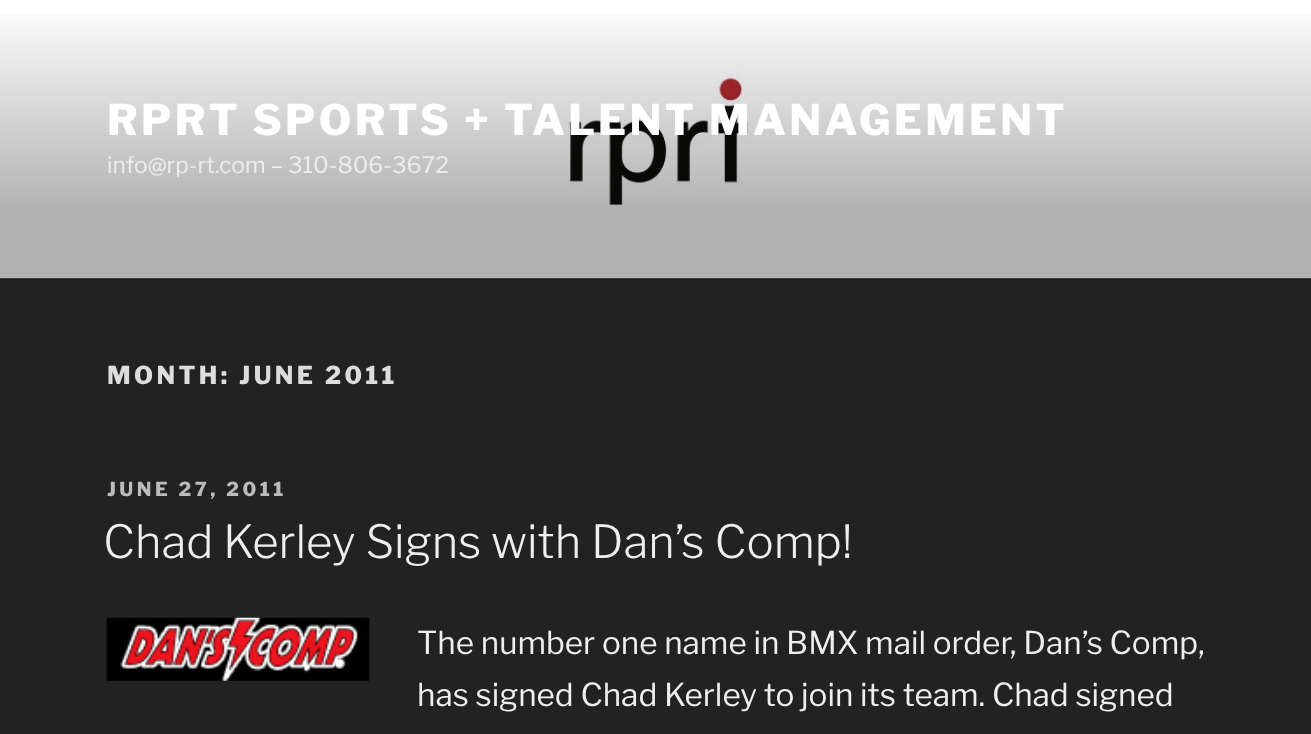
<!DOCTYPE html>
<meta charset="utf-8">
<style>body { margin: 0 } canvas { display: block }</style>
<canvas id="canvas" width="1311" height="734"></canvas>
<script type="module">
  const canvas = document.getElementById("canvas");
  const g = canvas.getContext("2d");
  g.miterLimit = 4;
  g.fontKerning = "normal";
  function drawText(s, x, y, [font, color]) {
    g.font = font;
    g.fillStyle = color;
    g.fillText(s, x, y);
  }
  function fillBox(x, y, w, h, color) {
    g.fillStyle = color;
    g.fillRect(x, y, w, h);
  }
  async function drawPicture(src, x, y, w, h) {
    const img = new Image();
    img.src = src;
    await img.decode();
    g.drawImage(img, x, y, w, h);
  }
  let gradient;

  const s1 = ["800 42px Libre Franklin", "#FFFFFF"];
  const s2 = ["22.75px Libre Franklin", "#EEEEEE"];
  const s3 = ["800 24.5px Libre Franklin", "#DDDDDD"];
  const s4 = ["800 19.25px Libre Franklin", "#BBBBBB"];
  const s5 = ["300 45.5px Libre Franklin", "#EEEEEE"];
  const s6 = ["31.5px Libre Franklin", "#EEEEEE"];

  fillBox(0, 0, 1311, 734, "#222222");
  fillBox(0, 278, 1311, 2, "#262626");
  await drawPicture("pic1.png", 0, 0, 1311, 279);
  gradient = g.createLinearGradient(656, 0, 656, 280);
  gradient.addColorStop(0, "rgba(0, 0, 0, 0)");
  gradient.addColorStop(0.75, "rgba(0, 0, 0, 0.3)");
  gradient.addColorStop(1, "rgba(0, 0, 0, 0.3)");
  g.fillStyle = gradient;
  g.fillRect(0, 15, 1311, 265);
  g.letterSpacing = "3.35px";
  drawText("RPRT SPORTS + TALENT MANAGEMENT", 107, 135, s1);
  g.letterSpacing = "0px";
  drawText("info@rp-rt.com – 310-806-3672", 107, 173, s2);
  g.letterSpacing = "3.4px";
  drawText("MONTH: JUNE 2011", 107, 384, s3);
  g.letterSpacing = "3.5px";
  drawText("JUNE 27, 2011", 107, 496, s4);
  g.letterSpacing = "0px";
  drawText("Chad Kerley Signs with Dan’s Comp!", 103, 558, s5);
  await drawPicture("pic2.png", 106, 617, 264, 64);
  drawText("The number one name in BMX mail order, Dan’s Comp,", 417, 654, s6);
  drawText("has signed Chad Kerley to join its team. Chad signed", 417, 706, s6);
</script>
